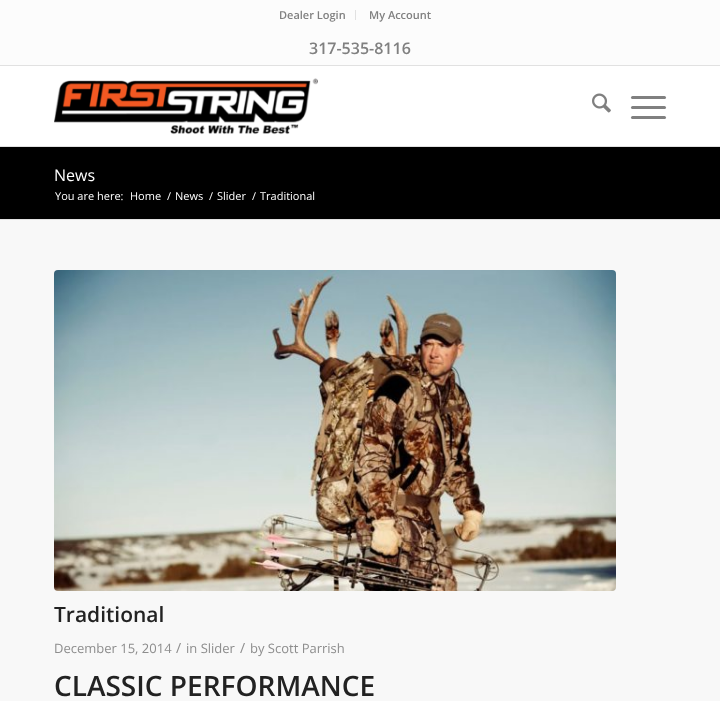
<!DOCTYPE html>
<meta charset="utf-8">
<style>body { margin: 0 } canvas { display: block }</style>
<canvas id="canvas" width="720" height="701"></canvas>
<script type="module">
  const canvas = document.getElementById("canvas");
  const g = canvas.getContext("2d");
  g.miterLimit = 4;
  g.fontKerning = "normal";
  function drawText(s, x, y, [font, color]) {
    g.font = font;
    g.fillStyle = color;
    g.fillText(s, x, y);
  }
  function fillBox(x, y, w, h, color) {
    g.fillStyle = color;
    g.fillRect(x, y, w, h);
  }
  function fillRounded(x, y, w, h, r, color) {
    g.fillStyle = color;
    g.beginPath();
    g.roundRect(x, y, w, h, r);
    g.fill();
  }
  async function drawPicture(src, x, y, w, h) {
    const img = new Image();
    img.src = src;
    await img.decode();
    g.drawImage(img, x, y, w, h);
  }

  const s1 = ["600 11px Open Sans", "#808080"];
  const s2 = ["600 16px Open Sans", "#808080"];
  const s3 = ["16px Open Sans", "#FFFFFF"];
  const s4 = ["11px Open Sans", "#FFFFFF"];
  const s5 = ["600 21px Open Sans", "#222222"];
  const s6 = ["13px Open Sans", "#8D8D8D"];
  const s7 = ["14px Open Sans", "#8D8D8D"];
  const s8 = ["600 28px Open Sans", "#222222"];

  fillBox(0, 0, 720, 701, "#000000");
  fillBox(0, 0, 720, 65, "#FCFCFC");
  fillBox(0, 65, 720, 1, "#E1E1E1");
  fillBox(355, 10, 1, 10, "#E1E1E1");
  drawText("Dealer Login", 279, 19, s1);
  drawText("My Account", 369, 19, s1);
  drawText("317-535-8116", 309, 54, s2);
  fillBox(0, 66, 720, 80, "#FFFFFF");
  fillBox(0, 146, 720, 1, "#E1E1E1");
  await drawPicture("pic1.png", 54, 78, 264, 57);
  await drawPicture("pic2.png", 592, 93, 19, 20);
  fillRounded(631, 106, 35, 3, 1.5, "#808080");
  fillRounded(631, 96, 35, 3, 1.5, "#808080");
  fillRounded(631, 116, 35, 3, 1.5, "#808080");
  drawText("News", 54, 181, s3);
  drawText("You are here:", 55, 200, s4);
  drawText("Home", 130, 200, s4);
  drawText("/", 167, 200, s4);
  drawText("News", 175, 200, s4);
  drawText("/", 209, 200, s4);
  drawText("Slider", 217, 200, s4);
  drawText("/", 252, 200, s4);
  drawText("Traditional", 260, 200, s4);
  fillBox(0, 220, 720, 481, "#F8F8F8");
  fillBox(0, 219, 720, 1, "#E1E1E1");
  await drawPicture("pic3.png", 54, 270, 562, 321);
  drawText("Traditional", 54, 622, s5);
  drawText("December 15, 2014", 54, 653, s6);
  drawText("/", 176, 653, s7);
  drawText("in Slider", 186, 653, s6);
  drawText("/", 240, 653, s7);
  drawText("by Scott Parrish", 250, 653, s6);
  drawText("CLASSIC PERFORMANCE", 54, 696, s8);
</script>
